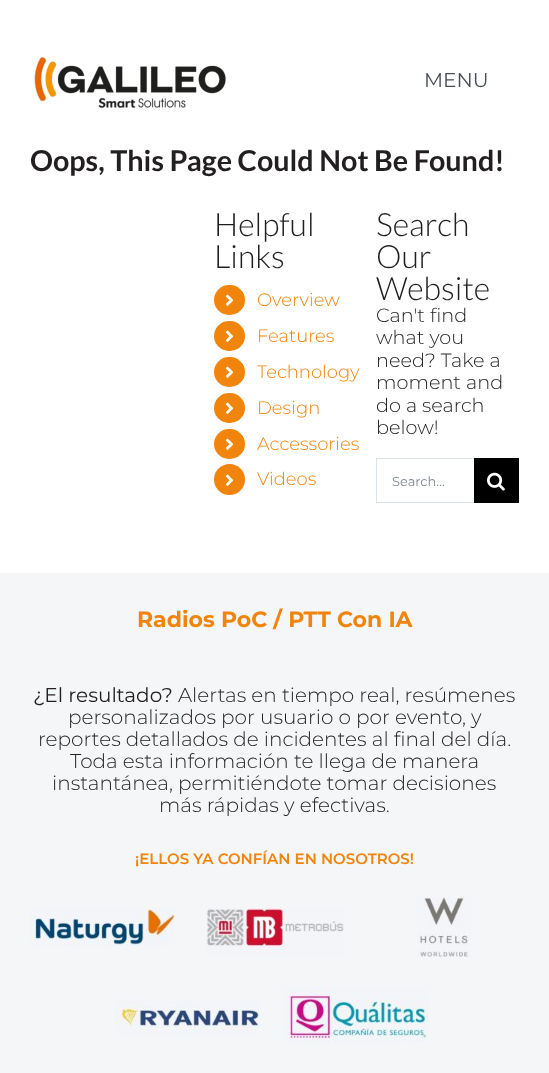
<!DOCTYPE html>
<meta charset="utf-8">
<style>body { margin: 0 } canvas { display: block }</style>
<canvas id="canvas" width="549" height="1073"></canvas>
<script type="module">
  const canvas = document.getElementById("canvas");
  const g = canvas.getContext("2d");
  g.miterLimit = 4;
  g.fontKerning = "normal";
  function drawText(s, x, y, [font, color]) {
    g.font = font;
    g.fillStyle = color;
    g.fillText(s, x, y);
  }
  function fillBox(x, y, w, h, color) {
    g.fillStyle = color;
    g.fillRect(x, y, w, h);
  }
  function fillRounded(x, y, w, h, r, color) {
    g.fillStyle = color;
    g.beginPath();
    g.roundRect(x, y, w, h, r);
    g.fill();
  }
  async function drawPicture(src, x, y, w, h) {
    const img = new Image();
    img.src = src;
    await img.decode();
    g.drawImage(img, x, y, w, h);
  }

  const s1 = ["20px Montserrat", "#4A4E57"];
  const s2 = ["bold 28.75px Lato", "#231F20"];
  const s3 = ["300 32px Lato", "#231F20"];
  const s4 = ["300 18px Montserrat", "#F1840A"];
  const s5 = ["300 19.25px Montserrat", "#231F20"];
  const s6 = ["13px Montserrat", "#7F8795"];
  const s7 = ["bold 22px Montserrat", "#F1840A"];
  const s8 = ["20px Montserrat", "#231F20"];
  const s9 = ["300 20px Montserrat", "#231F20"];
  const s10 = ["600 15px Montserrat", "#F1840A"];

  fillBox(0, 0, 549, 1073, "#FFFFFF");
  await drawPicture("pic1.png", 34, 57, 192, 51);
  drawText("MENU", 424, 87, s1);
  drawText("Oops, This Page Could Not Be Found!", 30, 171, s2);
  drawText("Helpful", 214, 236, s3);
  drawText("Links", 214, 268, s3);
  fillRounded(214, 285, 31, 30, 15, "#F1840A");
  await drawPicture("pic2.png", 225, 294, 9, 12);
  drawText("Overview", 257, 306, s4);
  fillRounded(214, 321, 31, 30, 15, "#F1840A");
  await drawPicture("pic2.png", 225, 330, 9, 12);
  drawText("Features", 257, 342, s4);
  fillRounded(214, 357, 31, 30, 15, "#F1840A");
  await drawPicture("pic2.png", 225, 366, 9, 12);
  drawText("Technology", 257, 378, s4);
  fillRounded(214, 393, 31, 30, 15, "#F1840A");
  await drawPicture("pic2.png", 225, 402, 9, 12);
  drawText("Design", 257, 414, s4);
  fillRounded(214, 429, 31, 30, 15, "#F1840A");
  await drawPicture("pic2.png", 225, 438, 9, 12);
  drawText("Accessories", 257, 450, s4);
  g.beginPath();
  g.arc(229.5, 479.5, 15.5, 0, Math.PI * 2);
  g.fill();
  await drawPicture("pic2.png", 225, 474, 9, 12);
  drawText("Videos", 257, 485, s4);
  drawText("Search", 376, 236, s3);
  drawText("Our", 376, 268, s3);
  drawText("Website", 376, 300, s3);
  drawText("Can't find", 376, 322, s5);
  drawText("what you", 376, 344, s5);
  drawText("need? Take a", 376, 367, s5);
  drawText("moment and", 376, 389, s5);
  drawText("do a search", 376, 412, s5);
  drawText("below!", 376, 434, s5);
  fillBox(376, 458, 98, 1, "#DBE2EA");
  fillBox(376, 502, 98, 1, "#DBE2EA");
  fillBox(376, 458, 1, 45, "#DBE2EA");
  drawText("Search...", 392, 486, s6);
  fillBox(474, 458, 45, 45, "#000000");
  await drawPicture("pic3.png", 487, 472, 18, 19);
  fillBox(0, 573, 549, 500, "#F4F6F8");
  drawText("Radios PoC / PTT Con IA", 137, 627, s7);
  drawText("¿El resultado?", 33, 702, s8);
  drawText("Alertas en tiempo real, resúmenes", 178, 702, s9);
  drawText("personalizados por usuario o por evento, y", 68, 724, s9);
  drawText("reportes detallados de incidentes al final del día.", 38, 746, s9);
  drawText("Toda esta información te llega de manera", 70, 768, s9);
  drawText("instantánea, permitiéndote tomar decisiones", 52, 790, s9);
  drawText("más rápidas y efectivas.", 159, 812, s9);
  drawText("¡ELLOS YA CONFÍAN EN NOSOTROS!", 135, 864, s10);
  await drawPicture("pic4.png", 30, 908, 145, 38);
  await drawPicture("pic5.png", 206, 908, 138, 49);
  await drawPicture("pic6.png", 417, 897, 54, 60);
  await drawPicture("pic7.png", 115, 999, 144, 36);
  await drawPicture("pic8.png", 284, 987, 145, 56);
</script>
